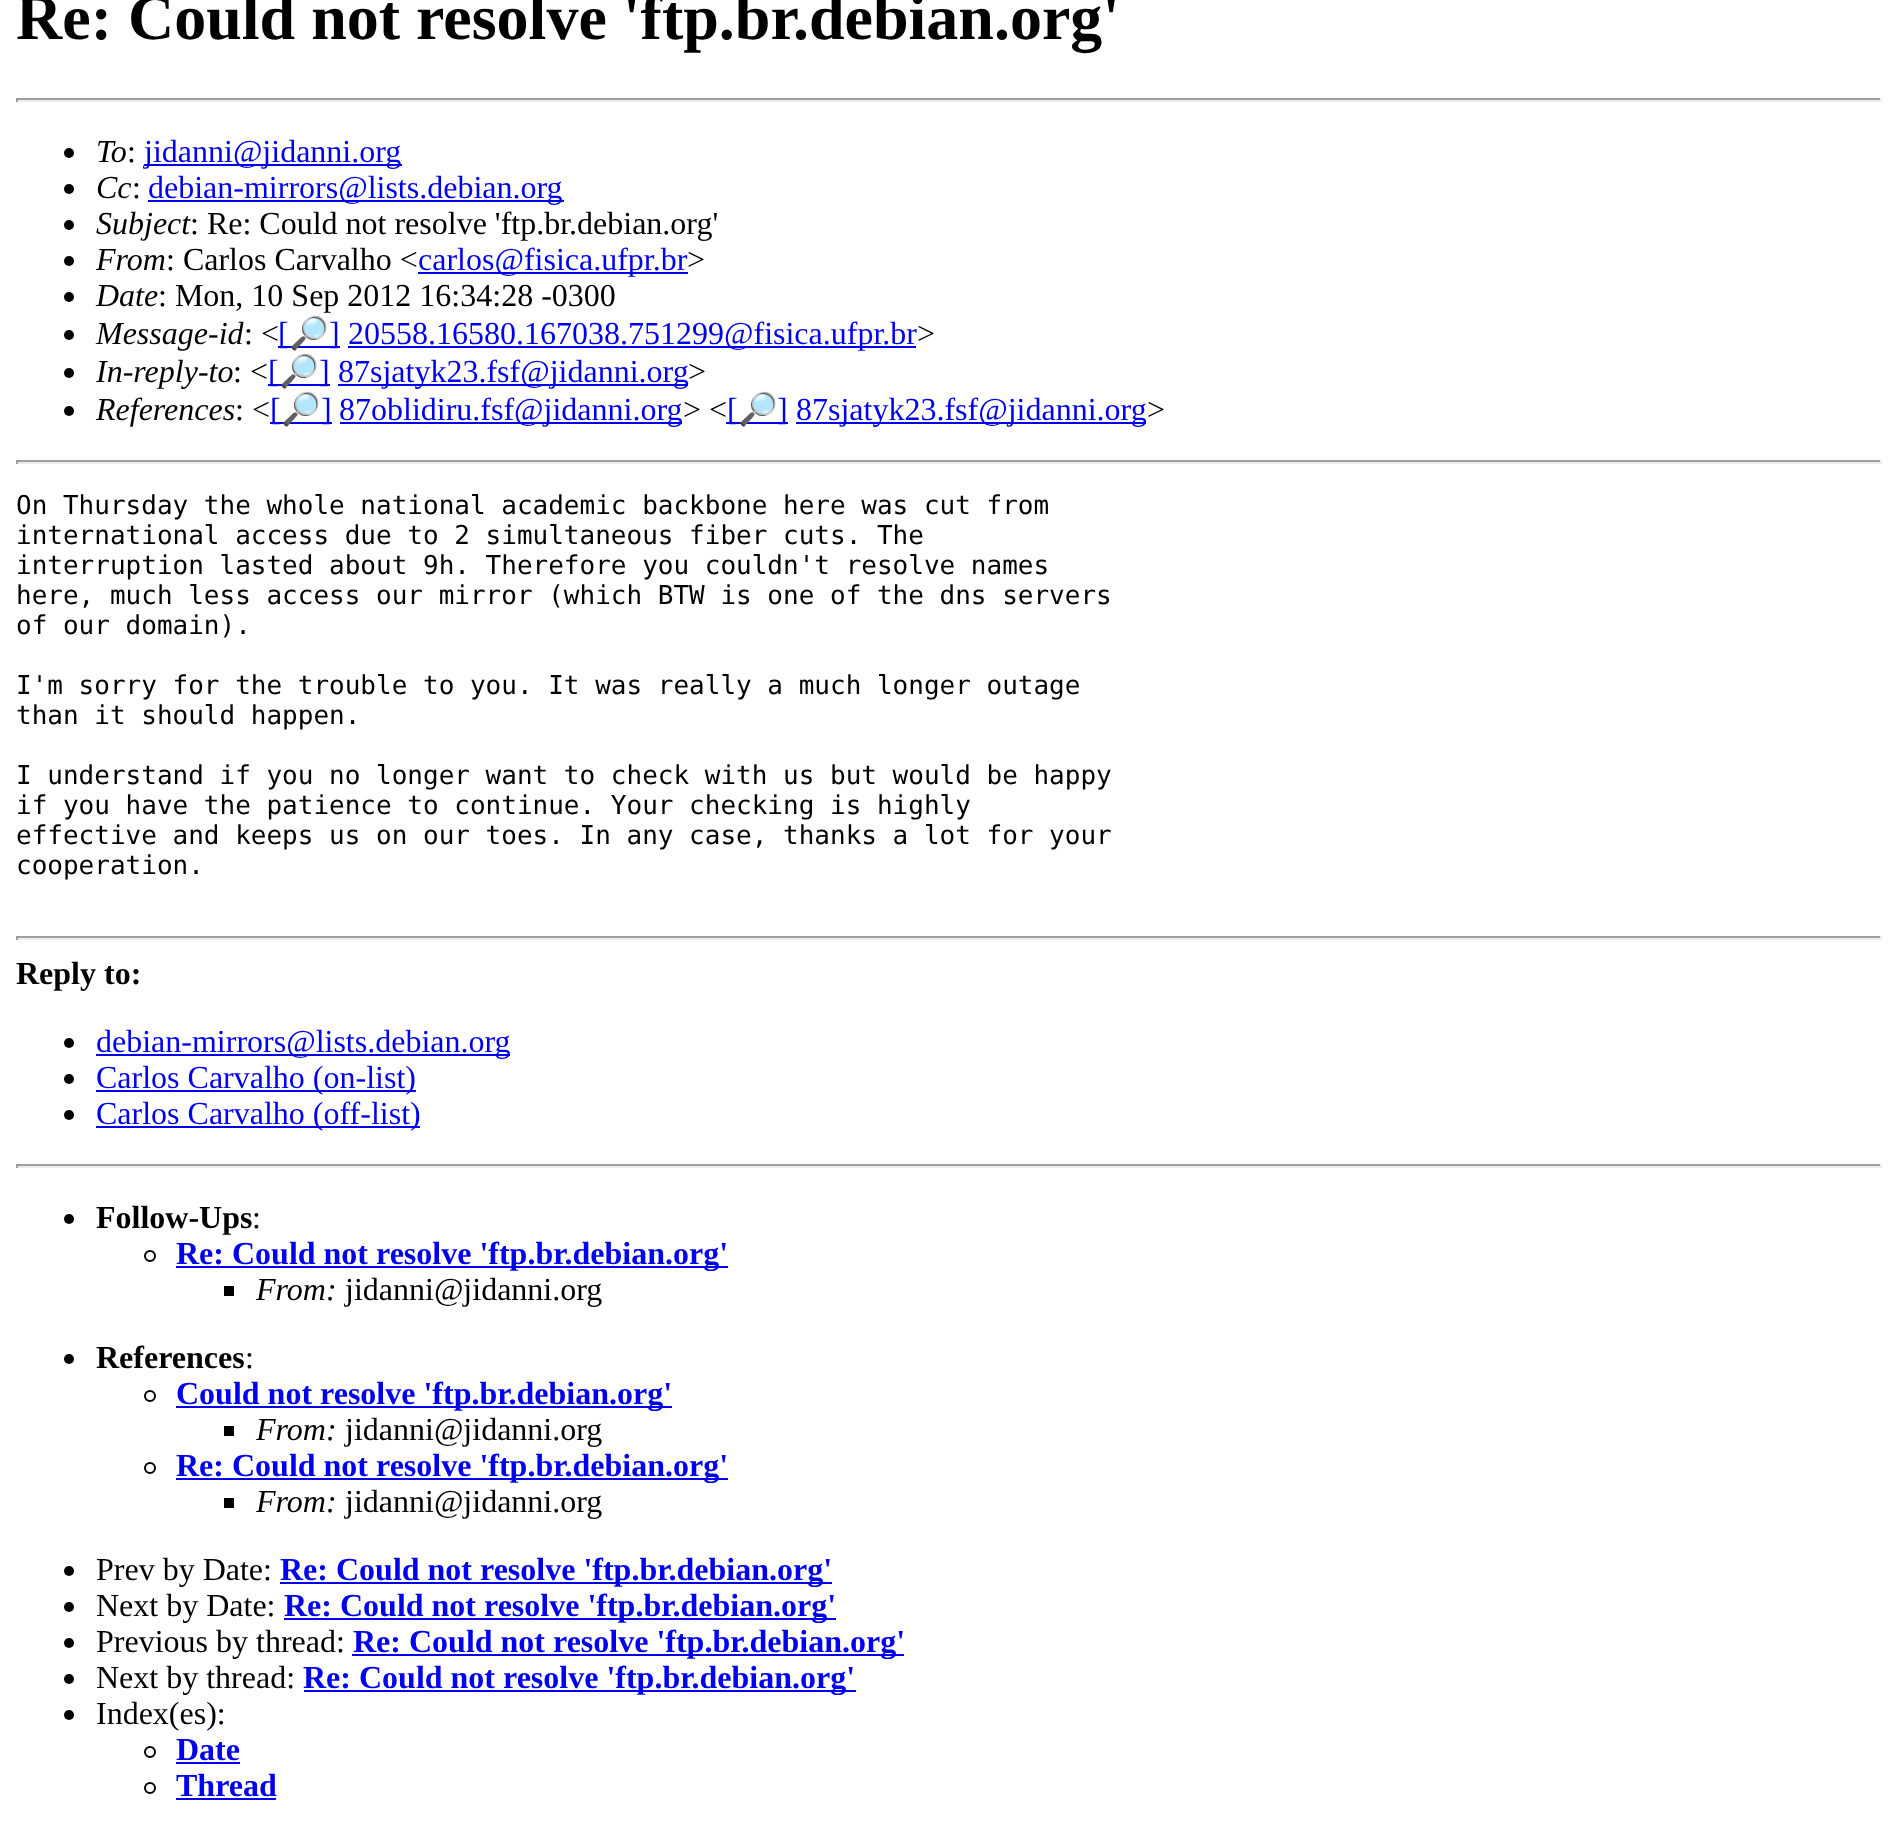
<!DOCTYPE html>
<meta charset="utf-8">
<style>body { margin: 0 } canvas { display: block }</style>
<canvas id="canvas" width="1897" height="1836"></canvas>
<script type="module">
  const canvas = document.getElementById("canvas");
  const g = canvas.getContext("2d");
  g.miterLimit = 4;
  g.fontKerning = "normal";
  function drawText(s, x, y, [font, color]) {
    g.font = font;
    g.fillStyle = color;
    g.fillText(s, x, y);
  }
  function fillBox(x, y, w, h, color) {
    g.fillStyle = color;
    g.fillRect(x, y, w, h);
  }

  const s1 = ["bold 64px Liberation Serif", "#000000"];
  const s2 = ["italic 32px Liberation Serif", "#000000"];
  const s3 = ["32px Liberation Serif", "#000000"];
  const s4 = ["32px Liberation Serif", "#0000EE"];
  const s5 = ["32px Noto Color Emoji", "#0000EE"];
  const s6 = ["26px DejaVu Sans Mono", "#000000"];
  const s7 = ["bold 32px Liberation Serif", "#000000"];
  const s8 = ["bold 32px Liberation Serif", "#0000EE"];

  fillBox(0, 0, 1897, 1836, "#FFFFFF");
  drawText("Re: Could not resolve 'ftp.br.debian.org'", 16, 39, s1);
  fillBox(16, 98, 1866, 2, "#9F9F9F");
  fillBox(1880, 98, 2, 4, "#EEEEEE");
  fillBox(16, 100, 1866, 2, "#EEEEEE");
  fillBox(16, 98, 2, 4, "#9F9F9F");
  g.fillStyle = "#000000";
  g.beginPath();
  g.arc(69, 153, 5, 0, Math.PI * 2);
  g.fill();
  drawText("To", 96, 162, s2);
  drawText(":", 127, 162, s3);
  fillBox(144, 164, 258, 2, "#0000EE");
  drawText("jidanni@jidanni.org", 144, 162, s4);
  g.fillStyle = "#000000";
  g.beginPath();
  g.arc(69, 189, 5, 0, Math.PI * 2);
  g.fill();
  drawText("Cc", 96, 198, s2);
  drawText(":", 132, 198, s3);
  fillBox(148, 200, 416, 2, "#0000EE");
  drawText("debian-mirrors@lists.debian.org", 148, 198, s4);
  g.fillStyle = "#000000";
  g.beginPath();
  g.arc(69, 225, 5, 0, Math.PI * 2);
  g.fill();
  drawText("Subject", 96, 234, s2);
  drawText(": Re: Could not resolve 'ftp.br.debian.org'", 190, 234, s3);
  g.beginPath();
  g.arc(69, 261, 5, 0, Math.PI * 2);
  g.fill();
  drawText("From", 96, 270, s2);
  drawText(": Carlos Carvalho <", 166, 270, s3);
  fillBox(418, 272, 270, 2, "#0000EE");
  drawText("carlos@fisica.ufpr.br", 418, 270, s4);
  drawText(">", 687, 270, s3);
  g.beginPath();
  g.arc(69, 297, 5, 0, Math.PI * 2);
  g.fill();
  drawText("Date", 96, 306, s2);
  drawText(": Mon, 10 Sep 2012 16:34:28 -0300", 158, 306, s3);
  g.beginPath();
  g.arc(69, 335, 5, 0, Math.PI * 2);
  g.fill();
  drawText("Message-id", 96, 344, s2);
  drawText(": <", 244, 344, s3);
  fillBox(278, 346, 62, 2, "#0000EE");
  drawText("[", 278, 344, s4);
  drawText("🔎", 289, 344, s5);
  drawText("]", 329, 344, s4);
  fillBox(348, 346, 568, 2, "#0000EE");
  drawText("20558.16580.167038.751299@fisica.ufpr.br", 348, 344, s4);
  drawText(">", 917, 344, s3);
  g.beginPath();
  g.arc(69, 373, 5, 0, Math.PI * 2);
  g.fill();
  drawText("In-reply-to", 96, 382, s2);
  drawText(": <", 233, 382, s3);
  fillBox(268, 384, 62, 2, "#0000EE");
  drawText("[", 268, 382, s4);
  drawText("🔎", 279, 382, s5);
  drawText("]", 319, 382, s4);
  fillBox(338, 384, 350, 2, "#0000EE");
  drawText("87sjatyk23.fsf@jidanni.org", 338, 382, s4);
  drawText(">", 688, 382, s3);
  g.beginPath();
  g.arc(69, 411, 5, 0, Math.PI * 2);
  g.fill();
  drawText("References", 96, 420, s2);
  drawText(": <", 235, 420, s3);
  fillBox(270, 422, 62, 2, "#0000EE");
  drawText("[", 270, 420, s4);
  drawText("🔎", 281, 420, s5);
  drawText("]", 321, 420, s4);
  fillBox(340, 422, 342, 2, "#0000EE");
  drawText("87oblidiru.fsf@jidanni.org", 339, 420, s4);
  drawText("> <", 683, 420, s3);
  fillBox(726, 422, 62, 2, "#0000EE");
  drawText("[", 727, 420, s4);
  drawText("🔎", 738, 420, s5);
  drawText("]", 777, 420, s4);
  fillBox(796, 422, 350, 2, "#0000EE");
  drawText("87sjatyk23.fsf@jidanni.org", 796, 420, s4);
  drawText(">", 1147, 420, s3);
  fillBox(16, 460, 1866, 2, "#9F9F9F");
  fillBox(1880, 460, 2, 4, "#EEEEEE");
  fillBox(16, 462, 1866, 2, "#EEEEEE");
  fillBox(16, 460, 2, 4, "#9F9F9F");
  drawText("On Thursday the whole national academic backbone here was cut from", 16, 514, s6);
  drawText("international access due to 2 simultaneous fiber cuts. The", 16, 544, s6);
  drawText("interruption lasted about 9h. Therefore you couldn't resolve names", 16, 574, s6);
  drawText("here, much less access our mirror (which BTW is one of the dns servers", 16, 604, s6);
  drawText("of our domain).", 16, 634, s6);
  drawText("I'm sorry for the trouble to you. It was really a much longer outage", 16, 694, s6);
  drawText("than it should happen.", 16, 724, s6);
  drawText("I understand if you no longer want to check with us but would be happy", 16, 784, s6);
  drawText("if you have the patience to continue. Your checking is highly", 16, 814, s6);
  drawText("effective and keeps us on our toes. In any case, thanks a lot for your", 16, 844, s6);
  drawText("cooperation.", 16, 874, s6);
  fillBox(16, 936, 1866, 2, "#9F9F9F");
  fillBox(1880, 936, 2, 4, "#EEEEEE");
  fillBox(16, 938, 1866, 2, "#EEEEEE");
  fillBox(16, 936, 2, 4, "#9F9F9F");
  drawText("Reply to:", 16, 984, s7);
  g.beginPath();
  g.arc(69, 1043, 5, 0, Math.PI * 2);
  g.fill();
  fillBox(96, 1054, 414, 2, "#0000EE");
  drawText("debian-mirrors@lists.debian.org", 96, 1052, s4);
  g.fillStyle = "#000000";
  g.beginPath();
  g.arc(69, 1079, 5, 0, Math.PI * 2);
  g.fill();
  fillBox(96, 1090, 320, 2, "#0000EE");
  drawText("Carlos Carvalho (on-list)", 96, 1088, s4);
  g.fillStyle = "#000000";
  g.beginPath();
  g.arc(69, 1115, 5, 0, Math.PI * 2);
  g.fill();
  fillBox(96, 1126, 324, 2, "#0000EE");
  drawText("Carlos Carvalho (off-list)", 96, 1124, s4);
  fillBox(16, 1164, 1866, 2, "#9F9F9F");
  fillBox(1880, 1164, 2, 4, "#EEEEEE");
  fillBox(16, 1166, 1866, 2, "#EEEEEE");
  fillBox(16, 1164, 2, 4, "#9F9F9F");
  g.fillStyle = "#000000";
  g.beginPath();
  g.arc(69, 1219, 5, 0, Math.PI * 2);
  g.fill();
  drawText("Follow-Ups", 96, 1228, s7);
  drawText(":", 252, 1228, s3);
  g.beginPath();
  g.arc(150, 1256, 5, 0, Math.PI * 2);
  g.strokeStyle = "#000000";
  g.lineWidth = 2;
  g.stroke();
  fillBox(176, 1266, 552, 2, "#0000EE");
  drawText("Re: Could not resolve 'ftp.br.debian.org'", 176, 1264, s8);
  fillBox(224, 1286, 10, 10, "#000000");
  drawText("From:", 256, 1300, s2);
  drawText("jidanni@jidanni.org", 345, 1300, s3);
  g.beginPath();
  g.arc(69, 1359, 5, 0, Math.PI * 2);
  g.fill();
  drawText("References", 96, 1368, s7);
  drawText(":", 245, 1368, s3);
  g.beginPath();
  g.arc(150, 1396, 5, 0, Math.PI * 2);
  g.stroke();
  fillBox(176, 1406, 496, 2, "#0000EE");
  drawText("Could not resolve 'ftp.br.debian.org'", 176, 1404, s8);
  fillBox(224, 1426, 10, 10, "#000000");
  drawText("From:", 256, 1440, s2);
  drawText("jidanni@jidanni.org", 345, 1440, s3);
  g.beginPath();
  g.arc(150, 1468, 5, 0, Math.PI * 2);
  g.stroke();
  fillBox(176, 1478, 552, 2, "#0000EE");
  drawText("Re: Could not resolve 'ftp.br.debian.org'", 176, 1476, s8);
  fillBox(224, 1498, 10, 10, "#000000");
  drawText("From:", 256, 1512, s2);
  drawText("jidanni@jidanni.org", 345, 1512, s3);
  g.beginPath();
  g.arc(69, 1571, 5, 0, Math.PI * 2);
  g.fill();
  drawText("Prev by Date:", 96, 1580, s3);
  fillBox(280, 1582, 552, 2, "#0000EE");
  drawText("Re: Could not resolve 'ftp.br.debian.org'", 280, 1580, s8);
  g.fillStyle = "#000000";
  g.beginPath();
  g.arc(69, 1607, 5, 0, Math.PI * 2);
  g.fill();
  drawText("Next by Date:", 96, 1616, s3);
  fillBox(284, 1618, 552, 2, "#0000EE");
  drawText("Re: Could not resolve 'ftp.br.debian.org'", 284, 1616, s8);
  g.fillStyle = "#000000";
  g.beginPath();
  g.arc(69, 1643, 5, 0, Math.PI * 2);
  g.fill();
  drawText("Previous by thread:", 96, 1652, s3);
  fillBox(352, 1654, 552, 2, "#0000EE");
  drawText("Re: Could not resolve 'ftp.br.debian.org'", 353, 1652, s8);
  g.fillStyle = "#000000";
  g.beginPath();
  g.arc(69, 1679, 5, 0, Math.PI * 2);
  g.fill();
  drawText("Next by thread:", 96, 1688, s3);
  fillBox(304, 1690, 552, 2, "#0000EE");
  drawText("Re: Could not resolve 'ftp.br.debian.org'", 303, 1688, s8);
  g.fillStyle = "#000000";
  g.beginPath();
  g.arc(69, 1715, 5, 0, Math.PI * 2);
  g.fill();
  drawText("Index(es):", 96, 1724, s3);
  g.beginPath();
  g.arc(150, 1752, 5, 0, Math.PI * 2);
  g.stroke();
  drawText("Date", 176, 1760, s8);
  fillBox(176, 1762, 64, 2, "#0000EE");
  g.beginPath();
  g.arc(150, 1788, 5, 0, Math.PI * 2);
  g.stroke();
  drawText("Thread", 176, 1796, s8);
  fillBox(176, 1798, 100, 2, "#0000EE");
</script>
